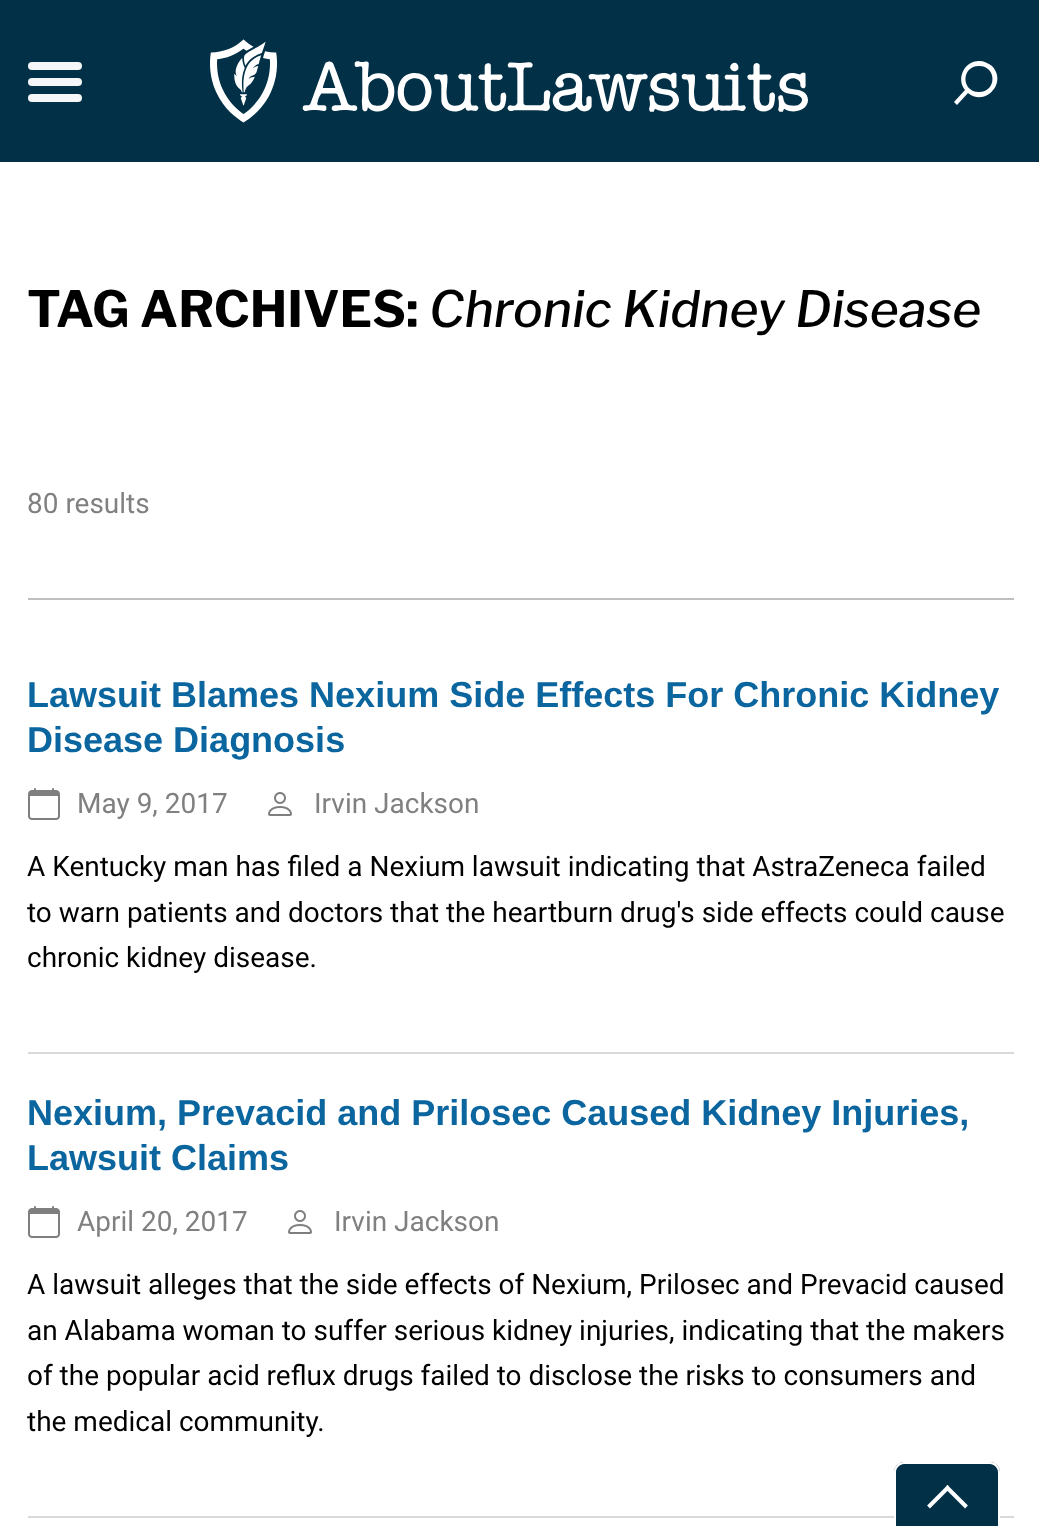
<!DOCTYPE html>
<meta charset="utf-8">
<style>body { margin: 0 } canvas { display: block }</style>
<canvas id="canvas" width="1039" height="1526"></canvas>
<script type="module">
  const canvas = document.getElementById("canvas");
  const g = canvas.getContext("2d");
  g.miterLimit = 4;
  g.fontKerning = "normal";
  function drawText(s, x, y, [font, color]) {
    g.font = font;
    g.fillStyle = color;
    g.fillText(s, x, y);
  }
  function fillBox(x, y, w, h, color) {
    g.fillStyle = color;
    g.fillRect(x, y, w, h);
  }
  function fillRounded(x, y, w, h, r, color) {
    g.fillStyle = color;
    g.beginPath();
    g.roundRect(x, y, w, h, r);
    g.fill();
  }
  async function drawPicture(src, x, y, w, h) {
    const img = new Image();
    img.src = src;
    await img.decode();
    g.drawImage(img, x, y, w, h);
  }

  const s1 = ["100 49.9px Libre Franklin", "#000000"];
  const s2 = ["italic 100 49.9px Libre Franklin", "#000000"];
  const s3 = ["28px Roboto", "#808080"];
  const s4 = ["bold 36px Liberation Sans", "#0B659E"];
  const s5 = ["28px Roboto", "#000000"];

  fillBox(0, 0, 1039, 1526, "#FFFFFF");
  fillBox(0, 0, 1039, 162, "#023047");
  fillRounded(28, 62, 54, 8, 4, "#F4F6F7");
  fillRounded(28, 78, 54, 8, 4, "#F4F6F7");
  fillRounded(28, 94, 54, 8, 4, "#F4F6F7");
  await drawPicture("pic1.png", 210, 39, 598, 84);
  g.fillStyle = "#FFFFFF";
  g.beginPath();
  g.moveTo(979, 61);
  g.bezierCurveTo(964, 61, 956, 79, 965, 90);
  g.lineTo(954, 102);
  g.lineTo(957, 105);
  g.lineTo(968, 93);
  g.bezierCurveTo(985, 107, 1008, 83, 992, 66);
  g.bezierCurveTo(988, 63, 984, 61, 979, 61);
  g.closePath();
  g.moveTo(979, 92);
  g.bezierCurveTo(961, 92, 961, 66, 979, 66);
  g.bezierCurveTo(997, 66, 997, 92, 979, 92);
  g.closePath();
  g.fill();
  drawText("TAG ARCHIVES:", 27, 327, s1);
  drawText("Chronic Kidney Disease", 429, 327, s2);
  drawText("80 results", 27, 513, s3);
  fillBox(28, 598, 986, 2, "#BFBFBF");
  fillBox(28, 1052, 986, 2, "#D9D9D9");
  drawText("Lawsuit Blames Nexium Side Effects For Chronic Kidney", 27, 707, s4);
  drawText("Disease Diagnosis", 27, 752, s4);
  await drawPicture("pic2.png", 28, 788, 32, 32);
  drawText("May 9, 2017", 77, 813, s3);
  await drawPicture("pic3.png", 268, 792, 24, 24);
  drawText("Irvin Jackson", 314, 813, s3);
  drawText("A Kentucky man has filed a Nexium lawsuit indicating that AstraZeneca failed", 27, 876, s5);
  drawText("to warn patients and doctors that the heartburn drug's side effects could cause", 27, 922, s5);
  drawText("chronic kidney disease.", 27, 967, s5);
  fillBox(28, 1516, 986, 2, "#D9D9D9");
  drawText("Nexium, Prevacid and Prilosec Caused Kidney Injuries,", 27, 1125, s4);
  drawText("Lawsuit Claims", 27, 1170, s4);
  await drawPicture("pic2.png", 28, 1206, 32, 32);
  drawText("April 20, 2017", 77, 1231, s3);
  await drawPicture("pic3.png", 288, 1210, 24, 24);
  drawText("Irvin Jackson", 334, 1231, s3);
  drawText("A lawsuit alleges that the side effects of Nexium, Prilosec and Prevacid caused", 27, 1294, s5);
  drawText("an Alabama woman to suffer serious kidney injuries, indicating that the makers", 27, 1340, s5);
  drawText("of the popular acid reflux drugs failed to disclose the risks to consumers and", 27, 1385, s5);
  drawText("the medical community.", 27, 1431, s5);
  g.fillStyle = "#023047";
  g.beginPath();
  g.roundRect(894, 1462, 106, 64, [10, 10, 0, 0]);
  g.fill();
  g.fillStyle = "#FFFFFF";
  g.beginPath();
  g.moveTo(904, 1462);
  g.lineTo(990, 1462);
  g.bezierCurveTo(996, 1462, 1000, 1467, 1000, 1472);
  g.lineTo(1000, 1526);
  g.lineTo(894, 1526);
  g.lineTo(894, 1472);
  g.bezierCurveTo(894, 1467, 898, 1462, 904, 1462);
  g.closePath();
  g.moveTo(904, 1464);
  g.lineTo(990, 1464);
  g.bezierCurveTo(994, 1464, 998, 1468, 998, 1472);
  g.lineTo(998, 1526);
  g.lineTo(896, 1526);
  g.lineTo(896, 1472);
  g.bezierCurveTo(896, 1468, 900, 1464, 904, 1464);
  g.closePath();
  g.fill("evenodd");
  g.beginPath();
  g.moveTo(966.5, 1507);
  g.lineTo(946, 1486.5);
  g.moveTo(949, 1486.5);
  g.lineTo(928.5, 1507);
  g.strokeStyle = "#FFFFFF";
  g.lineWidth = 4;
  g.stroke();
</script>
